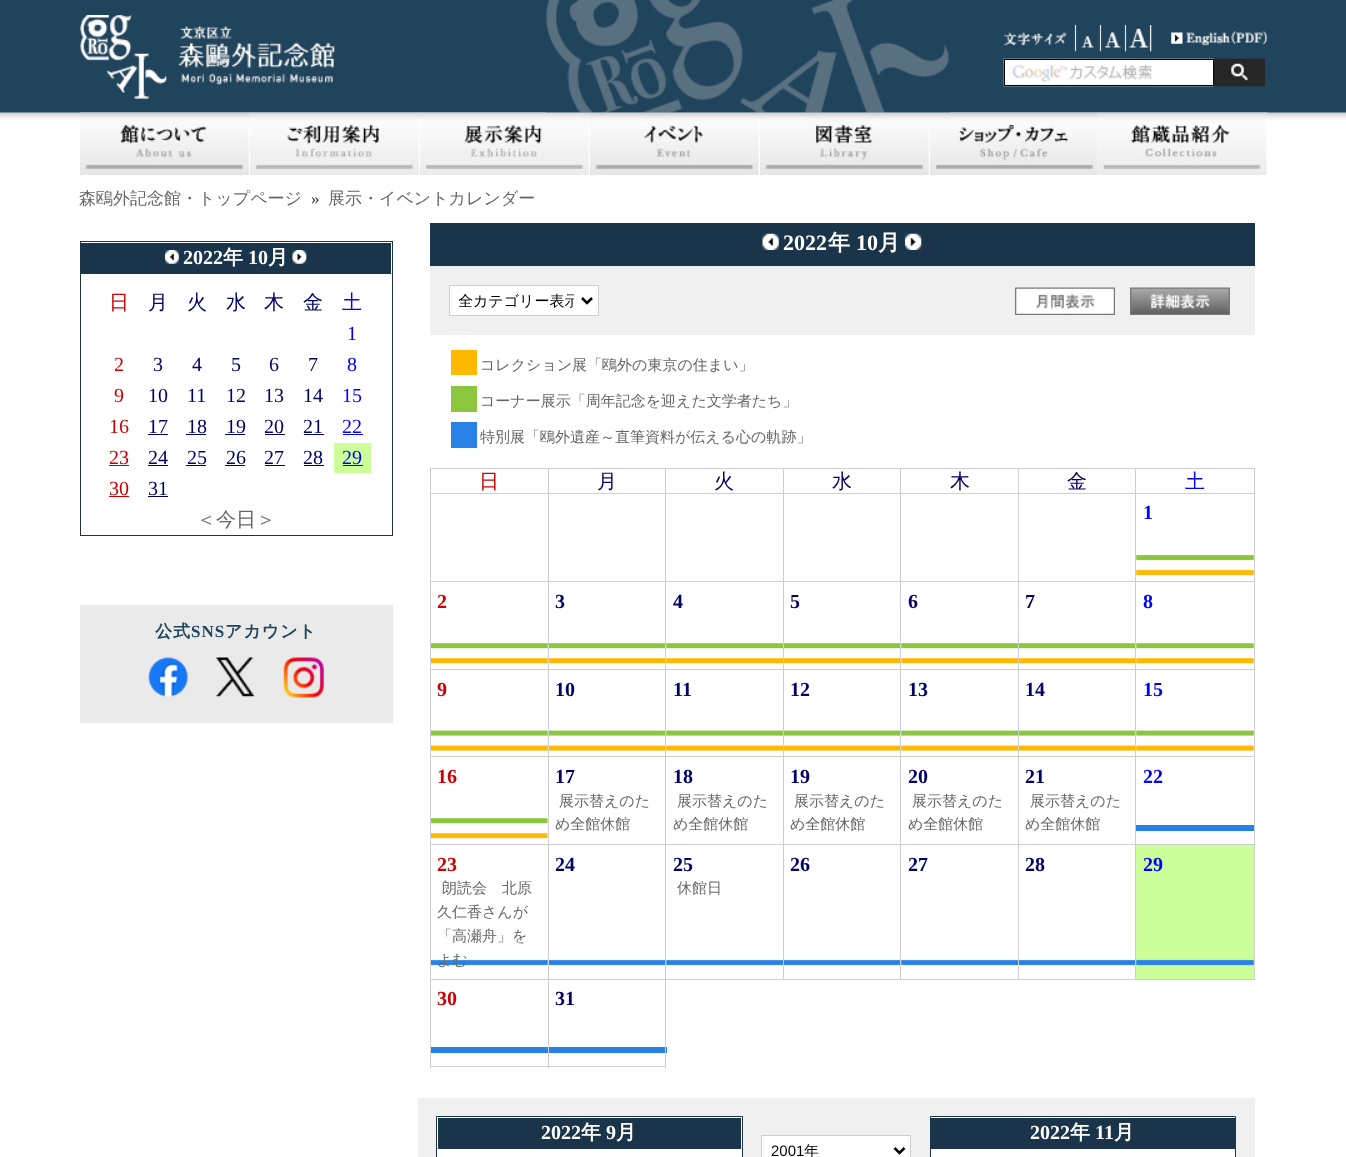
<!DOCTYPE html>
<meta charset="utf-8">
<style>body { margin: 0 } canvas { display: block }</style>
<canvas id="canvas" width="1346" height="1157"></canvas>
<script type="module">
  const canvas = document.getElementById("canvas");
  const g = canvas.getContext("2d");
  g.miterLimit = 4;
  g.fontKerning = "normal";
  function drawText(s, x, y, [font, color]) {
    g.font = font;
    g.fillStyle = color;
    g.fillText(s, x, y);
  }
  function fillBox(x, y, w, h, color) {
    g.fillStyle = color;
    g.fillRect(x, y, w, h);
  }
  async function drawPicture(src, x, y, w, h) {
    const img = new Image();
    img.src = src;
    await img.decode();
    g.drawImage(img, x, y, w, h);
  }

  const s1 = ["500 17px WenQuanYi Zen Hei", "#666666"];
  const s2 = ["17px Liberation Serif", "#333333"];
  const s3 = ["bold 20px Liberation Serif", "#FFFFFF"];
  const s4 = ["bold 20px WenQuanYi Zen Hei", "#FFFFFF"];
  const s5 = ["500 20px WenQuanYi Zen Hei", "#CC0000"];
  const s6 = ["500 20px WenQuanYi Zen Hei", "#000066"];
  const s7 = ["500 20px WenQuanYi Zen Hei", "#0000FF"];
  const s8 = ["20px Liberation Serif", "#0000FF"];
  const s9 = ["20px Liberation Serif", "#CC0000"];
  const s10 = ["20px Liberation Serif", "#000066"];
  const s11 = ["500 20px WenQuanYi Zen Hei", "#666666"];
  const s12 = ["bold 17px WenQuanYi Zen Hei", "#21445A"];
  const s13 = ["bold 17px Liberation Serif", "#21445A"];
  const s14 = ["bold 22px Liberation Serif", "#FFFFFF"];
  const s15 = ["bold 22px WenQuanYi Zen Hei", "#FFFFFF"];
  const s16 = ["500 15px WenQuanYi Zen Hei", "#000000"];
  const s17 = ["500 15px WenQuanYi Zen Hei", "#666666"];
  const s18 = ["bold 20px Liberation Serif", "#0000FF"];
  const s19 = ["bold 20px Liberation Serif", "#CC0000"];
  const s20 = ["bold 20px Liberation Serif", "#000066"];
  const s21 = ["15px Liberation Sans", "#000000"];

  fillBox(0, 0, 1346, 1157, "#FFFFFF");
  await drawPicture("pic1.png", 0, 0, 1346, 120);
  await drawPicture("pic2.png", 80, 15, 255, 84);
  await drawPicture("pic13.png", 420, 112, 170, 63);
  await drawPicture("pic14.png", 590, 112, 170, 63);
  await drawPicture("pic15.png", 760, 112, 170, 63);
  await drawPicture("pic16.png", 930, 112, 168, 63);
  await drawPicture("pic3.png", 546, 0, 404, 113);
  await drawPicture("pic4.png", 1003, 25, 74, 27);
  await drawPicture("pic5.png", 1076, 25, 26, 27);
  await drawPicture("pic6.png", 1101, 25, 26, 27);
  await drawPicture("pic7.png", 1126, 25, 26, 27);
  await drawPicture("pic8.png", 1171, 31, 97, 15);
  await drawPicture("pic9.png", 1003, 58, 211, 29);
  g.strokeStyle = "#000000";
  g.strokeRect(1004.5, 59.5, 209, 26);
  await drawPicture("pic10.png", 1213, 58, 52, 29);
  await drawPicture("pic11.png", 80, 112, 170, 63);
  await drawPicture("pic12.png", 250, 112, 170, 63);
  await drawPicture("pic17.png", 1097, 112, 171, 63);
  drawText("森鴎外記念館・トップページ", 79, 204, s1);
  drawText("»", 311, 204, s2);
  drawText("展示・イベントカレンダー", 328, 204, s1);
  g.strokeStyle = "#1A3449";
  g.strokeRect(80.5, 241.5, 312, 294);
  fillBox(81, 243, 310, 31, "#1A3449");
  await drawPicture("pic18.png", 165, 250, 14, 14);
  drawText("2022", 183, 264, s3);
  drawText("年", 223, 264, s4);
  drawText("10", 248, 264, s3);
  drawText("月", 268, 264, s4);
  await drawPicture("pic19.png", 292, 250, 15, 14);
  drawText("日", 109, 309, s5);
  drawText("月", 148, 309, s6);
  drawText("火", 187, 309, s6);
  drawText("水", 226, 309, s6);
  drawText("木", 264, 309, s6);
  drawText("金", 303, 309, s6);
  drawText("土", 342, 309, s7);
  drawText("1", 347, 340, s8);
  drawText("2", 114, 371, s9);
  drawText("3", 153, 371, s10);
  drawText("4", 192, 371, s10);
  drawText("5", 231, 371, s10);
  drawText("6", 269, 371, s10);
  drawText("7", 308, 371, s10);
  drawText("8", 347, 371, s8);
  drawText("9", 114, 402, s9);
  drawText("10", 148, 402, s10);
  drawText("11", 187, 402, s10);
  drawText("12", 226, 402, s10);
  drawText("13", 264, 402, s10);
  drawText("14", 303, 402, s10);
  drawText("15", 342, 402, s8);
  drawText("16", 109, 433, s9);
  drawText("17", 148, 433, s10);
  fillBox(148, 434, 20, 1, "#000066");
  drawText("18", 187, 433, s10);
  fillBox(186, 434, 20, 1, "#000066");
  drawText("19", 226, 433, s10);
  fillBox(225, 434, 20, 1, "#000066");
  drawText("20", 264, 433, s10);
  fillBox(265, 434, 20, 1, "#000066");
  drawText("21", 303, 433, s10);
  fillBox(304, 434, 20, 1, "#000066");
  drawText("22", 342, 433, s8);
  fillBox(343, 434, 20, 1, "#0000FF");
  drawText("23", 109, 464, s9);
  fillBox(109, 465, 20, 1, "#CC0000");
  drawText("24", 148, 464, s10);
  fillBox(148, 465, 20, 1, "#000066");
  drawText("25", 187, 464, s10);
  fillBox(186, 465, 20, 1, "#000066");
  drawText("26", 226, 464, s10);
  fillBox(225, 465, 20, 1, "#000066");
  drawText("27", 264, 464, s10);
  fillBox(265, 465, 20, 1, "#000066");
  drawText("28", 303, 464, s10);
  fillBox(304, 465, 20, 1, "#000066");
  fillBox(334, 443, 37, 30, "#CCFF99");
  drawText("29", 342, 464, s8);
  fillBox(343, 465, 20, 1, "#0000FF");
  drawText("30", 109, 495, s9);
  fillBox(109, 496, 20, 1, "#CC0000");
  drawText("31", 148, 495, s10);
  fillBox(148, 496, 20, 1, "#000066");
  drawText("＜今日＞", 196, 526, s11);
  fillBox(80, 605, 313, 118, "#EAEAEA");
  g.letterSpacing = "1px";
  drawText("公式", 155, 637, s12);
  drawText("SNS", 191, 637, s13);
  drawText("アカウント", 225, 637, s12);
  await drawPicture("pic20.png", 148, 657, 40, 40);
  await drawPicture("pic21.png", 216, 657, 39, 40);
  await drawPicture("pic22.png", 283, 657, 41, 41);
  fillBox(430, 223, 825, 43, "#1A3449");
  await drawPicture("pic23.png", 762, 233, 17, 17);
  g.letterSpacing = "0px";
  drawText("2022", 783, 250, s14);
  drawText("年", 828, 250, s15);
  drawText("10", 856, 250, s14);
  drawText("月", 878, 250, s15);
  await drawPicture("pic24.png", 905, 233, 17, 17);
  fillBox(430, 266, 825, 69, "#F0F0F0");
  g.fillStyle = "#FFFFFF";
  g.beginPath();
  g.rect(449.5, 285.5, 149, 30);
  g.fill();
  g.strokeStyle = "#CFCFCF";
  g.stroke();
  g.beginPath();
  g.moveTo(582, 298);
  g.lineTo(587, 303);
  g.lineTo(592, 298);
  g.strokeStyle = "#000000";
  g.lineWidth = 2.5;
  g.stroke();
  g.save();
  g.beginPath();
  g.rect(459, 291, 115, 20);
  g.clip();
  drawText("全カテゴリー表示", 458, 306, s16);
  g.restore();
  await drawPicture("pic25.png", 1015, 287, 100, 28);
  await drawPicture("pic26.png", 1130, 287, 100, 28);
  fillBox(451, 350, 26, 25, "#FFB900");
  drawText("コレクション展「鴎外の東京の住まい」", 480, 370, s17);
  fillBox(451, 386, 26, 26, "#8CC63F");
  drawText("コーナー展示「周年記念を迎えた文学者たち」", 480, 406, s17);
  fillBox(451, 422, 26, 26, "#2882E6");
  drawText("特別展「鴎外遺産～直筆資料が伝える心の軌跡」", 480, 442, s17);
  fillBox(1135, 468, 120, 1, "#CFCFCF");
  fillBox(1135, 493, 120, 1, "#CFCFCF");
  fillBox(1135, 581, 120, 1, "#CFCFCF");
  fillBox(1135, 669, 120, 1, "#CFCFCF");
  fillBox(1135, 756, 120, 1, "#CFCFCF");
  fillBox(1135, 844, 120, 1, "#CFCFCF");
  fillBox(1254, 844, 1, 136, "#CFCFCF");
  fillBox(1135, 979, 120, 1, "#CFCFCF");
  fillBox(1135, 844, 1, 136, "#CFCFCF");
  fillBox(1018, 844, 118, 1, "#CFCFCF");
  fillBox(1135, 756, 1, 89, "#CFCFCF");
  fillBox(1018, 756, 118, 1, "#CFCFCF");
  fillBox(1135, 669, 1, 89, "#CFCFCF");
  fillBox(1018, 669, 118, 1, "#CFCFCF");
  fillBox(1135, 581, 1, 89, "#CFCFCF");
  fillBox(1018, 581, 118, 1, "#CFCFCF");
  fillBox(1135, 493, 1, 90, "#CFCFCF");
  fillBox(1018, 493, 118, 1, "#CFCFCF");
  fillBox(1135, 468, 1, 26, "#CFCFCF");
  fillBox(1018, 468, 118, 1, "#CFCFCF");
  fillBox(1018, 979, 118, 1, "#CFCFCF");
  fillBox(1018, 844, 1, 136, "#CFCFCF");
  fillBox(900, 844, 119, 1, "#CFCFCF");
  fillBox(1018, 756, 1, 89, "#CFCFCF");
  fillBox(900, 756, 119, 1, "#CFCFCF");
  fillBox(1018, 669, 1, 89, "#CFCFCF");
  fillBox(900, 669, 119, 1, "#CFCFCF");
  fillBox(1018, 581, 1, 89, "#CFCFCF");
  fillBox(900, 581, 119, 1, "#CFCFCF");
  fillBox(1018, 493, 1, 90, "#CFCFCF");
  fillBox(900, 493, 119, 1, "#CFCFCF");
  fillBox(1018, 468, 1, 26, "#CFCFCF");
  fillBox(900, 468, 119, 1, "#CFCFCF");
  fillBox(900, 979, 119, 1, "#CFCFCF");
  fillBox(900, 844, 1, 136, "#CFCFCF");
  fillBox(783, 844, 118, 1, "#CFCFCF");
  fillBox(900, 756, 1, 89, "#CFCFCF");
  fillBox(783, 756, 118, 1, "#CFCFCF");
  fillBox(900, 669, 1, 89, "#CFCFCF");
  fillBox(783, 669, 118, 1, "#CFCFCF");
  fillBox(900, 581, 1, 89, "#CFCFCF");
  fillBox(783, 581, 118, 1, "#CFCFCF");
  fillBox(900, 493, 1, 90, "#CFCFCF");
  fillBox(783, 493, 118, 1, "#CFCFCF");
  fillBox(900, 468, 1, 26, "#CFCFCF");
  fillBox(783, 468, 118, 1, "#CFCFCF");
  fillBox(783, 979, 118, 1, "#CFCFCF");
  fillBox(783, 844, 1, 136, "#CFCFCF");
  fillBox(665, 844, 119, 1, "#CFCFCF");
  fillBox(783, 756, 1, 89, "#CFCFCF");
  fillBox(665, 756, 119, 1, "#CFCFCF");
  fillBox(783, 669, 1, 89, "#CFCFCF");
  fillBox(665, 669, 119, 1, "#CFCFCF");
  fillBox(783, 581, 1, 89, "#CFCFCF");
  fillBox(665, 581, 119, 1, "#CFCFCF");
  fillBox(783, 493, 1, 90, "#CFCFCF");
  fillBox(665, 493, 119, 1, "#CFCFCF");
  fillBox(783, 468, 1, 26, "#CFCFCF");
  fillBox(665, 468, 119, 1, "#CFCFCF");
  fillBox(548, 979, 118, 1, "#CFCFCF");
  fillBox(430, 1047, 237, 6, "#2882E6");
  fillBox(665, 979, 1, 89, "#CFCFCF");
  fillBox(665, 979, 119, 1, "#CFCFCF");
  fillBox(665, 844, 1, 136, "#CFCFCF");
  fillBox(548, 844, 118, 1, "#CFCFCF");
  fillBox(665, 756, 1, 89, "#CFCFCF");
  fillBox(548, 756, 118, 1, "#CFCFCF");
  fillBox(665, 669, 1, 89, "#CFCFCF");
  fillBox(548, 669, 118, 1, "#CFCFCF");
  fillBox(665, 581, 1, 89, "#CFCFCF");
  fillBox(548, 581, 118, 1, "#CFCFCF");
  fillBox(665, 493, 1, 90, "#CFCFCF");
  fillBox(548, 493, 118, 1, "#CFCFCF");
  fillBox(665, 468, 1, 26, "#CFCFCF");
  fillBox(548, 468, 118, 1, "#CFCFCF");
  await drawPicture("pic28.png", 431, 643, 117, 21);
  await drawPicture("pic29.png", 547, 643, 118, 21);
  await drawPicture("pic33.png", 431, 730, 117, 21);
  await drawPicture("pic34.png", 547, 730, 118, 21);
  await drawPicture("pic38.png", 431, 959, 117, 7);
  await drawPicture("pic39.png", 547, 959, 118, 7);
  fillBox(548, 1066, 118, 1, "#CFCFCF");
  fillBox(548, 979, 1, 89, "#CFCFCF");
  fillBox(430, 979, 119, 1, "#CFCFCF");
  fillBox(548, 844, 1, 136, "#CFCFCF");
  fillBox(430, 844, 119, 1, "#CFCFCF");
  fillBox(548, 756, 1, 89, "#CFCFCF");
  fillBox(430, 756, 119, 1, "#CFCFCF");
  fillBox(548, 669, 1, 89, "#CFCFCF");
  fillBox(430, 669, 119, 1, "#CFCFCF");
  fillBox(548, 581, 1, 89, "#CFCFCF");
  fillBox(430, 581, 119, 1, "#CFCFCF");
  fillBox(548, 493, 1, 90, "#CFCFCF");
  fillBox(430, 493, 119, 1, "#CFCFCF");
  fillBox(548, 468, 1, 26, "#CFCFCF");
  fillBox(430, 468, 119, 1, "#CFCFCF");
  fillBox(430, 1066, 119, 1, "#CFCFCF");
  fillBox(430, 979, 1, 89, "#CFCFCF");
  fillBox(430, 844, 1, 136, "#CFCFCF");
  fillBox(430, 756, 1, 89, "#CFCFCF");
  fillBox(430, 669, 1, 89, "#CFCFCF");
  fillBox(430, 581, 1, 89, "#CFCFCF");
  fillBox(430, 493, 1, 90, "#CFCFCF");
  fillBox(430, 468, 1, 26, "#CFCFCF");
  drawText("日", 479, 488, s5);
  drawText("月", 597, 488, s6);
  drawText("火", 714, 488, s6);
  drawText("水", 832, 488, s6);
  drawText("木", 950, 488, s6);
  drawText("金", 1067, 488, s6);
  fillBox(1254, 756, 1, 89, "#CFCFCF");
  fillBox(1254, 669, 1, 89, "#CFCFCF");
  fillBox(1254, 581, 1, 89, "#CFCFCF");
  fillBox(1254, 493, 1, 90, "#CFCFCF");
  fillBox(1254, 468, 1, 26, "#CFCFCF");
  drawText("土", 1185, 488, s7);
  await drawPicture("pic27.png", 1136, 554, 118, 22);
  drawText("1", 1143, 519, s18);
  drawText("2", 437, 608, s19);
  drawText("3", 555, 608, s20);
  await drawPicture("pic30.png", 666, 643, 117, 21);
  drawText("4", 673, 608, s20);
  await drawPicture("pic31.png", 784, 643, 116, 21);
  drawText("5", 790, 608, s20);
  await drawPicture("pic30.png", 901, 643, 117, 21);
  drawText("6", 908, 608, s20);
  await drawPicture("pic31.png", 1019, 643, 116, 21);
  drawText("7", 1025, 608, s20);
  await drawPicture("pic32.png", 1136, 643, 118, 21);
  drawText("8", 1143, 608, s18);
  drawText("9", 437, 696, s19);
  drawText("10", 555, 696, s20);
  await drawPicture("pic35.png", 666, 730, 117, 21);
  drawText("11", 673, 696, s20);
  await drawPicture("pic36.png", 784, 730, 116, 21);
  drawText("12", 790, 696, s20);
  await drawPicture("pic35.png", 901, 730, 117, 21);
  drawText("13", 908, 696, s20);
  await drawPicture("pic36.png", 1019, 730, 116, 21);
  drawText("14", 1025, 696, s20);
  await drawPicture("pic37.png", 1136, 730, 118, 21);
  drawText("15", 1143, 696, s18);
  await drawPicture("pic28.png", 431, 818, 117, 21);
  drawText("16", 437, 783, s19);
  drawText("17", 555, 783, s20);
  drawText("展示替えのた", 559, 806, s17);
  drawText("め全館休館", 555, 829, s17);
  drawText("18", 673, 783, s20);
  drawText("展示替えのた", 677, 806, s17);
  drawText("め全館休館", 673, 829, s17);
  drawText("19", 790, 783, s20);
  drawText("展示替えのた", 794, 806, s17);
  drawText("め全館休館", 790, 829, s17);
  drawText("20", 908, 783, s20);
  drawText("展示替えのた", 912, 806, s17);
  drawText("め全館休館", 908, 829, s17);
  drawText("21", 1025, 783, s20);
  drawText("展示替えのた", 1030, 806, s17);
  drawText("め全館休館", 1025, 829, s17);
  fillBox(1136, 825, 118, 6, "#2882E6");
  drawText("22", 1143, 783, s18);
  drawText("23", 437, 871, s19);
  drawText("朗読会　北原", 442, 893, s17);
  drawText("久仁香さんが", 437, 917, s17);
  drawText("「高瀬舟」を", 437, 941, s17);
  drawText("よむ", 437, 965, s17);
  drawText("24", 555, 871, s20);
  await drawPicture("pic40.png", 666, 959, 117, 7);
  drawText("25", 673, 871, s20);
  drawText("休館日", 677, 893, s17);
  await drawPicture("pic41.png", 784, 959, 116, 7);
  drawText("26", 790, 871, s20);
  await drawPicture("pic40.png", 901, 959, 117, 7);
  drawText("27", 908, 871, s20);
  await drawPicture("pic41.png", 1019, 959, 116, 7);
  drawText("28", 1025, 871, s20);
  fillBox(1136, 845, 118, 134, "#CCFF99");
  await drawPicture("pic42.png", 1136, 959, 118, 7);
  drawText("29", 1143, 871, s18);
  drawText("30", 437, 1005, s19);
  drawText("31", 555, 1005, s20);
  fillBox(418, 1098, 837, 59, "#F0F0F0");
  g.fillStyle = "#FFFFFF";
  g.beginPath();
  g.rect(436.5, 1116.5, 306, 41);
  g.fill();
  g.strokeStyle = "#1A3449";
  g.lineWidth = 1;
  g.stroke();
  fillBox(438, 1118, 303, 31, "#1A3449");
  drawText("2022", 541, 1139, s3);
  drawText("年", 581, 1139, s4);
  drawText("9", 606, 1139, s3);
  drawText("月", 616, 1139, s4);
  g.beginPath();
  g.rect(930.5, 1116.5, 305, 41);
  g.fill();
  g.stroke();
  fillBox(931, 1118, 304, 31, "#1A3449");
  drawText("2022", 1030, 1139, s3);
  drawText("年", 1070, 1139, s4);
  drawText("11", 1095, 1139, s3);
  drawText("月", 1114, 1139, s4);
  g.beginPath();
  g.rect(761.5, 1135.5, 149, 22);
  g.fill();
  g.strokeStyle = "#CFCFCF";
  g.stroke();
  g.beginPath();
  g.moveTo(894.5, 1148);
  g.lineTo(899.5, 1153);
  g.lineTo(904.5, 1148);
  g.strokeStyle = "#000000";
  g.lineWidth = 2.5;
  g.stroke();
  drawText("2001", 771, 1156, s21);
  drawText("年", 804, 1156, s16);
</script>
